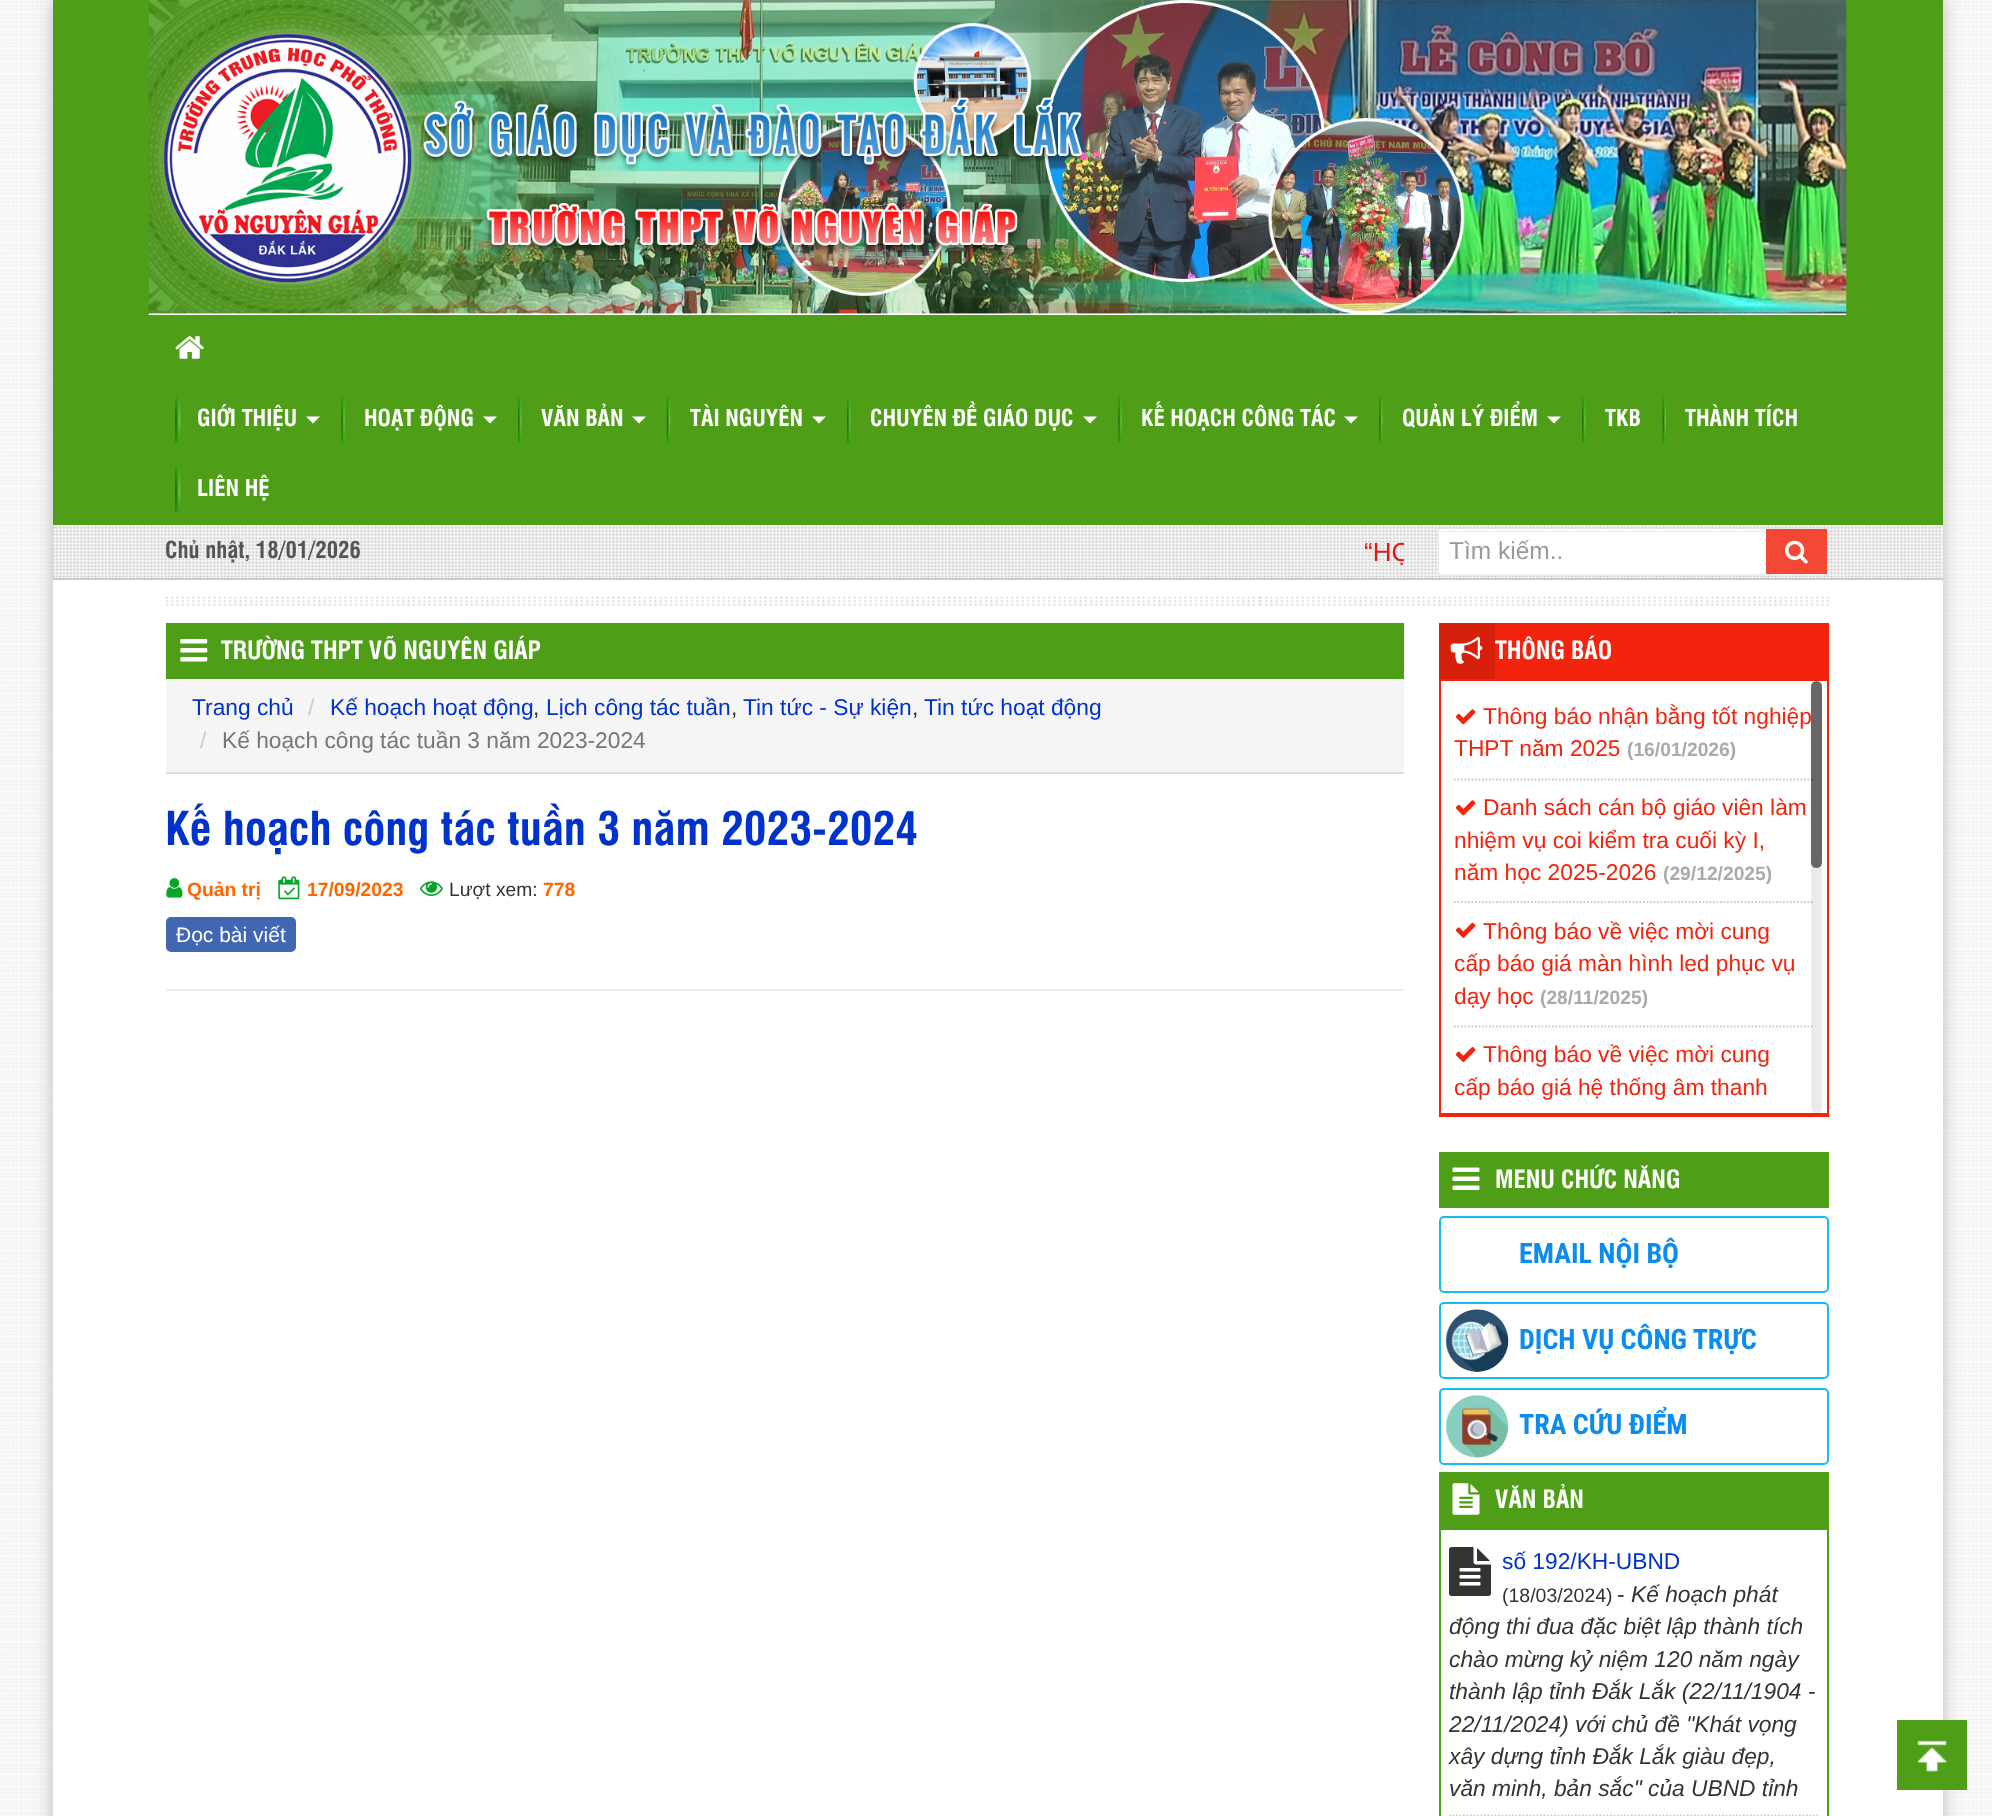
<!DOCTYPE html>
<meta charset="utf-8">
<style>body { margin: 0 } canvas { display: block }</style>
<canvas id="canvas" width="1992" height="1816"></canvas>
<script type="module">
  const canvas = document.getElementById("canvas");
  const g = canvas.getContext("2d");
  g.miterLimit = 4;
  g.fontKerning = "normal";
  function drawText(s, x, y, [font, color]) {
    g.font = font;
    g.fillStyle = color;
    g.fillText(s, x, y);
  }
  function fillBox(x, y, w, h, color) {
    g.fillStyle = color;
    g.fillRect(x, y, w, h);
  }
  function fillRounded(x, y, w, h, r, color) {
    g.fillStyle = color;
    g.beginPath();
    g.roundRect(x, y, w, h, r);
    g.fill();
  }
  async function drawPicture(src, x, y, w, h) {
    const img = new Image();
    img.src = src;
    await img.decode();
    g.drawImage(img, x, y, w, h);
  }

  const s1 = ["bold 22.75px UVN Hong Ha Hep", "#FFFFFF"];
  const s2 = ["bold 22.75px UVN Hong Ha Hep", "#555555"];
  const s3 = ["26px Liberation Sans", "#DA1C12"];
  const s4 = ["24.5px Liberation Sans", "#999999"];
  const s5 = ["bold 24.5px UVN Hong Ha Hep", "#FFFFFF"];
  const s6 = ["22.75px Liberation Sans", "#0033CC"];
  const s7 = ["22.75px Liberation Sans", "#CCCCCC"];
  const s8 = ["22.75px Liberation Sans", "#333333"];
  const s9 = ["22.75px Liberation Sans", "#777777"];
  const s10 = ["bold 45.5px UVN Hong Ha Hep", "#0033CC"];
  const s11 = ["bold 19.25px Liberation Sans", "#FF6600"];
  const s12 = ["19.25px Liberation Sans", "#333333"];
  const s13 = ["21px Liberation Sans", "#FFFFFF"];
  const s14 = ["22.75px Liberation Sans", "#F2240D"];
  const s15 = ["bold 19.25px Liberation Sans", "#AAAAAA"];
  const s16 = ["bold 28px Roboto Condensed", "#0B8CEE"];
  const s17 = ["19.5px Liberation Sans", "#333333"];
  const s18 = ["italic 22.75px Liberation Sans", "#333333"];

  fillBox(0, 0, 1992, 1816, "#FFFFFF");
  await drawPicture("pic1.png", 0, 0, 1992, 1816);
  g.fillStyle = "#BBBBBB";
  g.filter = "blur(9px)";
  g.beginPath();
  g.rect(53, 0, 1890, 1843);
  g.fill();
  g.filter = "none";
  fillBox(53, 580, 1890, 1236, "#FFFFFF");
  fillBox(53, 0, 1890, 525, "#4E9E18");
  await drawPicture("pic2.png", 148, 0, 1699, 315);
  await drawPicture("pic3.png", 175, 336, 29, 23);
  await drawPicture("pic4.png", 175, 397, 6, 46);
  drawText("GIỚI THIỆU", 197, 426, s1);
  g.beginPath();
  g.moveTo(306, 416.5);
  g.lineTo(320, 416.5);
  g.lineTo(313, 423.5);
  g.closePath();
  g.fill();
  await drawPicture("pic5.png", 341, 397, 4, 46);
  drawText("HOẠT ĐỘNG", 364, 426, s1);
  g.beginPath();
  g.moveTo(483, 416.5);
  g.lineTo(497, 416.5);
  g.lineTo(490, 423.5);
  g.closePath();
  g.fill();
  await drawPicture("pic6.png", 518, 397, 4, 46);
  drawText("VĂN BẢN", 541, 426, s1);
  g.beginPath();
  g.moveTo(632, 416.5);
  g.lineTo(646, 416.5);
  g.lineTo(639, 423.5);
  g.closePath();
  g.fill();
  await drawPicture("pic7.png", 666, 397, 5, 46);
  drawText("TÀI NGUYÊN", 690, 426, s1);
  g.beginPath();
  g.moveTo(812, 416.5);
  g.lineTo(826, 416.5);
  g.lineTo(819, 423.5);
  g.closePath();
  g.fill();
  await drawPicture("pic6.png", 847, 397, 4, 46);
  drawText("CHUYÊN ĐỀ GIÁO DỤC", 870, 426, s1);
  g.beginPath();
  g.moveTo(1083, 416.5);
  g.lineTo(1097, 416.5);
  g.lineTo(1090, 423.5);
  g.closePath();
  g.fill();
  await drawPicture("pic5.png", 1118, 397, 4, 46);
  drawText("KẾ HOẠCH CÔNG TÁC", 1141, 426, s1);
  g.beginPath();
  g.moveTo(1344, 416.5);
  g.lineTo(1358, 416.5);
  g.lineTo(1351, 423.5);
  g.closePath();
  g.fill();
  await drawPicture("pic6.png", 1379, 397, 4, 46);
  drawText("QUẢN LÝ ĐIỂM", 1402, 426, s1);
  g.beginPath();
  g.moveTo(1547, 416.5);
  g.lineTo(1561, 416.5);
  g.lineTo(1554, 423.5);
  g.closePath();
  g.fill();
  await drawPicture("pic6.png", 1582, 397, 4, 46);
  drawText("TKB", 1605, 426, s1);
  await drawPicture("pic8.png", 1662, 397, 4, 46);
  drawText("THÀNH TÍCH", 1685, 426, s1);
  await drawPicture("pic4.png", 175, 467, 6, 46);
  drawText("LIÊN HỆ", 197, 496, s1);
  fillBox(53, 525, 1890, 53, "#F5F5F5");
  await drawPicture("pic9.png", 52, 525, 1891, 53);
  fillBox(53, 578, 1890, 2, "#CCCCCC");
  drawText("Chủ nhật, 18/01/2026", 165, 558, s2);
  g.save();
  g.beginPath();
  g.rect(431, 536, 973, 36);
  g.clip();
  g.wordSpacing = "-2px";
  drawText("“HỌ", 1364, 561, s3);
  g.restore();
  fillBox(1441, 532, 325, 40, "#FFFFFF");
  fillBox(1440, 531, 326, 1, "#ECECEC");
  g.strokeStyle = "#FFFFFF";
  g.lineWidth = 2;
  g.strokeRect(1440, 530, 327, 43);
  drawText("Tìm kiếm..", 1449, 559, s4);
  fillBox(1766, 529, 61, 45, "#F44835");
  await drawPicture("pic10.png", 1785, 540, 23, 24);
  await drawPicture("pic11.png", 166, 596, 1663, 10);
  fillBox(166, 623, 1238, 56, "#4E9E18");
  await drawPicture("pic12.png", 180, 639, 28, 23);
  drawText("TRƯỜNG THPT VÕ NGUYÊN GIÁP", 221, 659, s5);
  fillBox(166, 679, 1238, 93, "#F5F5F5");
  fillBox(166, 772, 1238, 2, "#DDDDDD");
  drawText("Trang chủ", 192, 715, s6);
  drawText("/", 308, 715, s7);
  drawText("Kế hoạch hoạt động", 330, 715, s6);
  drawText(",", 533, 715, s8);
  drawText("Lịch công tác tuần", 546, 715, s6);
  drawText(",", 731, 715, s8);
  drawText("Tin tức - Sự kiện", 743, 715, s6);
  drawText(",", 912, 715, s8);
  drawText("Tin tức hoạt động", 924, 715, s6);
  drawText("/", 200, 748, s7);
  drawText("Kế hoạch công tác tuần 3 năm 2023-2024", 222, 748, s9);
  drawText("Kế hoạch công tác tuần 3 năm 2023-2024", 165, 845, s10);
  await drawPicture("pic13.png", 166, 878, 17, 20);
  drawText("Quản trị", 187, 896, s11);
  await drawPicture("pic14.png", 278, 876, 22, 24);
  drawText("17/09/2023", 307, 896, s11);
  await drawPicture("pic15.png", 420, 881, 23, 15);
  drawText("Lượt xem:", 449, 896, s12);
  drawText("778", 543, 896, s11);
  g.fillStyle = "#4267B2";
  g.beginPath();
  g.roundRect(167, 918, 128, 33, 4);
  g.fill();
  g.strokeStyle = "#4267B2";
  g.stroke();
  drawText("Đọc bài viết", 176, 942, s13);
  fillBox(166, 989, 1238, 2, "#EEEEEE");
  fillBox(1495, 623, 334, 56, "#F2240D");
  fillBox(1439, 623, 56, 56, "#D6200C");
  await drawPicture("pic16.png", 1450, 636, 33, 28);
  drawText("THÔNG BÁO", 1495, 659, s5);
  fillBox(1439, 679, 390, 2, "#F2240D");
  fillBox(1827, 679, 2, 438, "#F2240D");
  fillBox(1439, 1113, 390, 4, "#F2240D");
  fillBox(1439, 679, 2, 438, "#F2240D");
  g.beginPath();
  g.moveTo(1454, 779.5);
  g.lineTo(1813, 779.5);
  g.strokeStyle = "#CCCCCC";
  g.lineWidth = 1.8;
  g.setLineDash([1.75, 1.75]);
  g.stroke();
  await drawPicture("pic17.png", 1455, 709, 21, 16);
  drawText("Thông báo nhận bằng tốt nghiệp", 1483, 724, s14);
  drawText("THPT năm 2025", 1454, 756, s14);
  drawText("(16/01/2026)", 1627, 756, s15);
  g.beginPath();
  g.moveTo(1454, 902);
  g.lineTo(1813, 902);
  g.stroke();
  await drawPicture("pic17.png", 1455, 800, 21, 16);
  drawText("Danh sách cán bộ giáo viên làm", 1483, 815, s14);
  drawText("nhiệm vụ coi kiểm tra cuối kỳ I,", 1454, 848, s14);
  drawText("năm học 2025-2026", 1454, 880, s14);
  drawText("(29/12/2025)", 1663, 880, s15);
  g.beginPath();
  g.moveTo(1454, 1026.5);
  g.lineTo(1813, 1026.5);
  g.stroke();
  await drawPicture("pic18.png", 1455, 922, 21, 16);
  drawText("Thông báo về việc mời cung", 1483, 939, s14);
  drawText("cấp báo giá màn hình led phục vụ", 1454, 971, s14);
  drawText("dạy học", 1454, 1004, s14);
  drawText("(28/11/2025)", 1540, 1004, s15);
  await drawPicture("pic19.png", 1455, 1047, 21, 16);
  drawText("Thông báo về việc mời cung", 1483, 1062, s14);
  drawText("cấp báo giá hệ thống âm thanh", 1454, 1095, s14);
  fillRounded(1811, 681, 11, 432, 5.5, "rgba(0, 0, 0, 0.08)");
  fillRounded(1811, 681, 11, 187, 5.5, "rgba(0, 0, 0, 0.56)");
  fillBox(1439, 1152, 390, 56, "#4E9E18");
  await drawPicture("pic20.png", 1452, 1167, 28, 23);
  drawText("MENU CHỨC NĂNG", 1495, 1188, s5);
  g.beginPath();
  g.roundRect(1440, 1217, 388, 75, 4);
  g.strokeStyle = "#16BBF1";
  g.lineWidth = 2;
  g.setLineDash([]);
  g.stroke();
  drawText("EMAIL NỘI BỘ", 1519, 1263, s16);
  g.beginPath();
  g.roundRect(1440, 1303, 388, 75, 4);
  g.stroke();
  await drawPicture("pic21.png", 1445, 1309, 64, 63);
  drawText("DỊCH VỤ CÔNG TRỰC", 1519, 1349, s16);
  g.beginPath();
  g.roundRect(1440, 1389, 388, 75, 4);
  g.stroke();
  await drawPicture("pic22.png", 1445, 1394, 64, 64);
  drawText("TRA CỨU ĐIỂM", 1519, 1434, s16);
  fillBox(1439, 1472, 390, 58, "#4E9E18");
  await drawPicture("pic23.png", 1452, 1483, 28, 32);
  drawText("VĂN BẢN", 1495, 1508, s5);
  fillBox(1827, 1528, 2, 288, "#4E9E18");
  fillBox(1439, 1528, 2, 288, "#4E9E18");
  g.beginPath();
  g.moveTo(1449, 1815.5);
  g.lineTo(1818, 1815.5);
  g.strokeStyle = "#CCCCCC";
  g.lineWidth = 1.8;
  g.setLineDash([1.75, 1.75]);
  g.stroke();
  await drawPicture("pic24.png", 1449, 1547, 42, 49);
  drawText("số 192/KH-UBND", 1502, 1569, s6);
  drawText("(18/03/2024)", 1502, 1602, s17);
  drawText("-", 1617, 1602, s8);
  drawText("Kế hoạch phát", 1631, 1602, s18);
  drawText("động thi đua đặc biệt lập thành tích", 1449, 1634, s18);
  drawText("chào mừng kỷ niệm 120 năm ngày", 1449, 1667, s18);
  drawText("thành lập tỉnh Đắk Lắk (22/11/1904 -", 1449, 1699, s18);
  drawText("22/11/2024) với chủ đề \"Khát vọng", 1449, 1732, s18);
  drawText("xây dựng tỉnh Đắk Lắk giàu đẹp,", 1449, 1764, s18);
  drawText("văn minh, bản sắc\" của UBND tỉnh", 1449, 1796, s18);
  fillBox(1897, 1720, 70, 70, "#4E9E18");
  await drawPicture("pic25.png", 1917, 1740, 30, 32);
</script>
